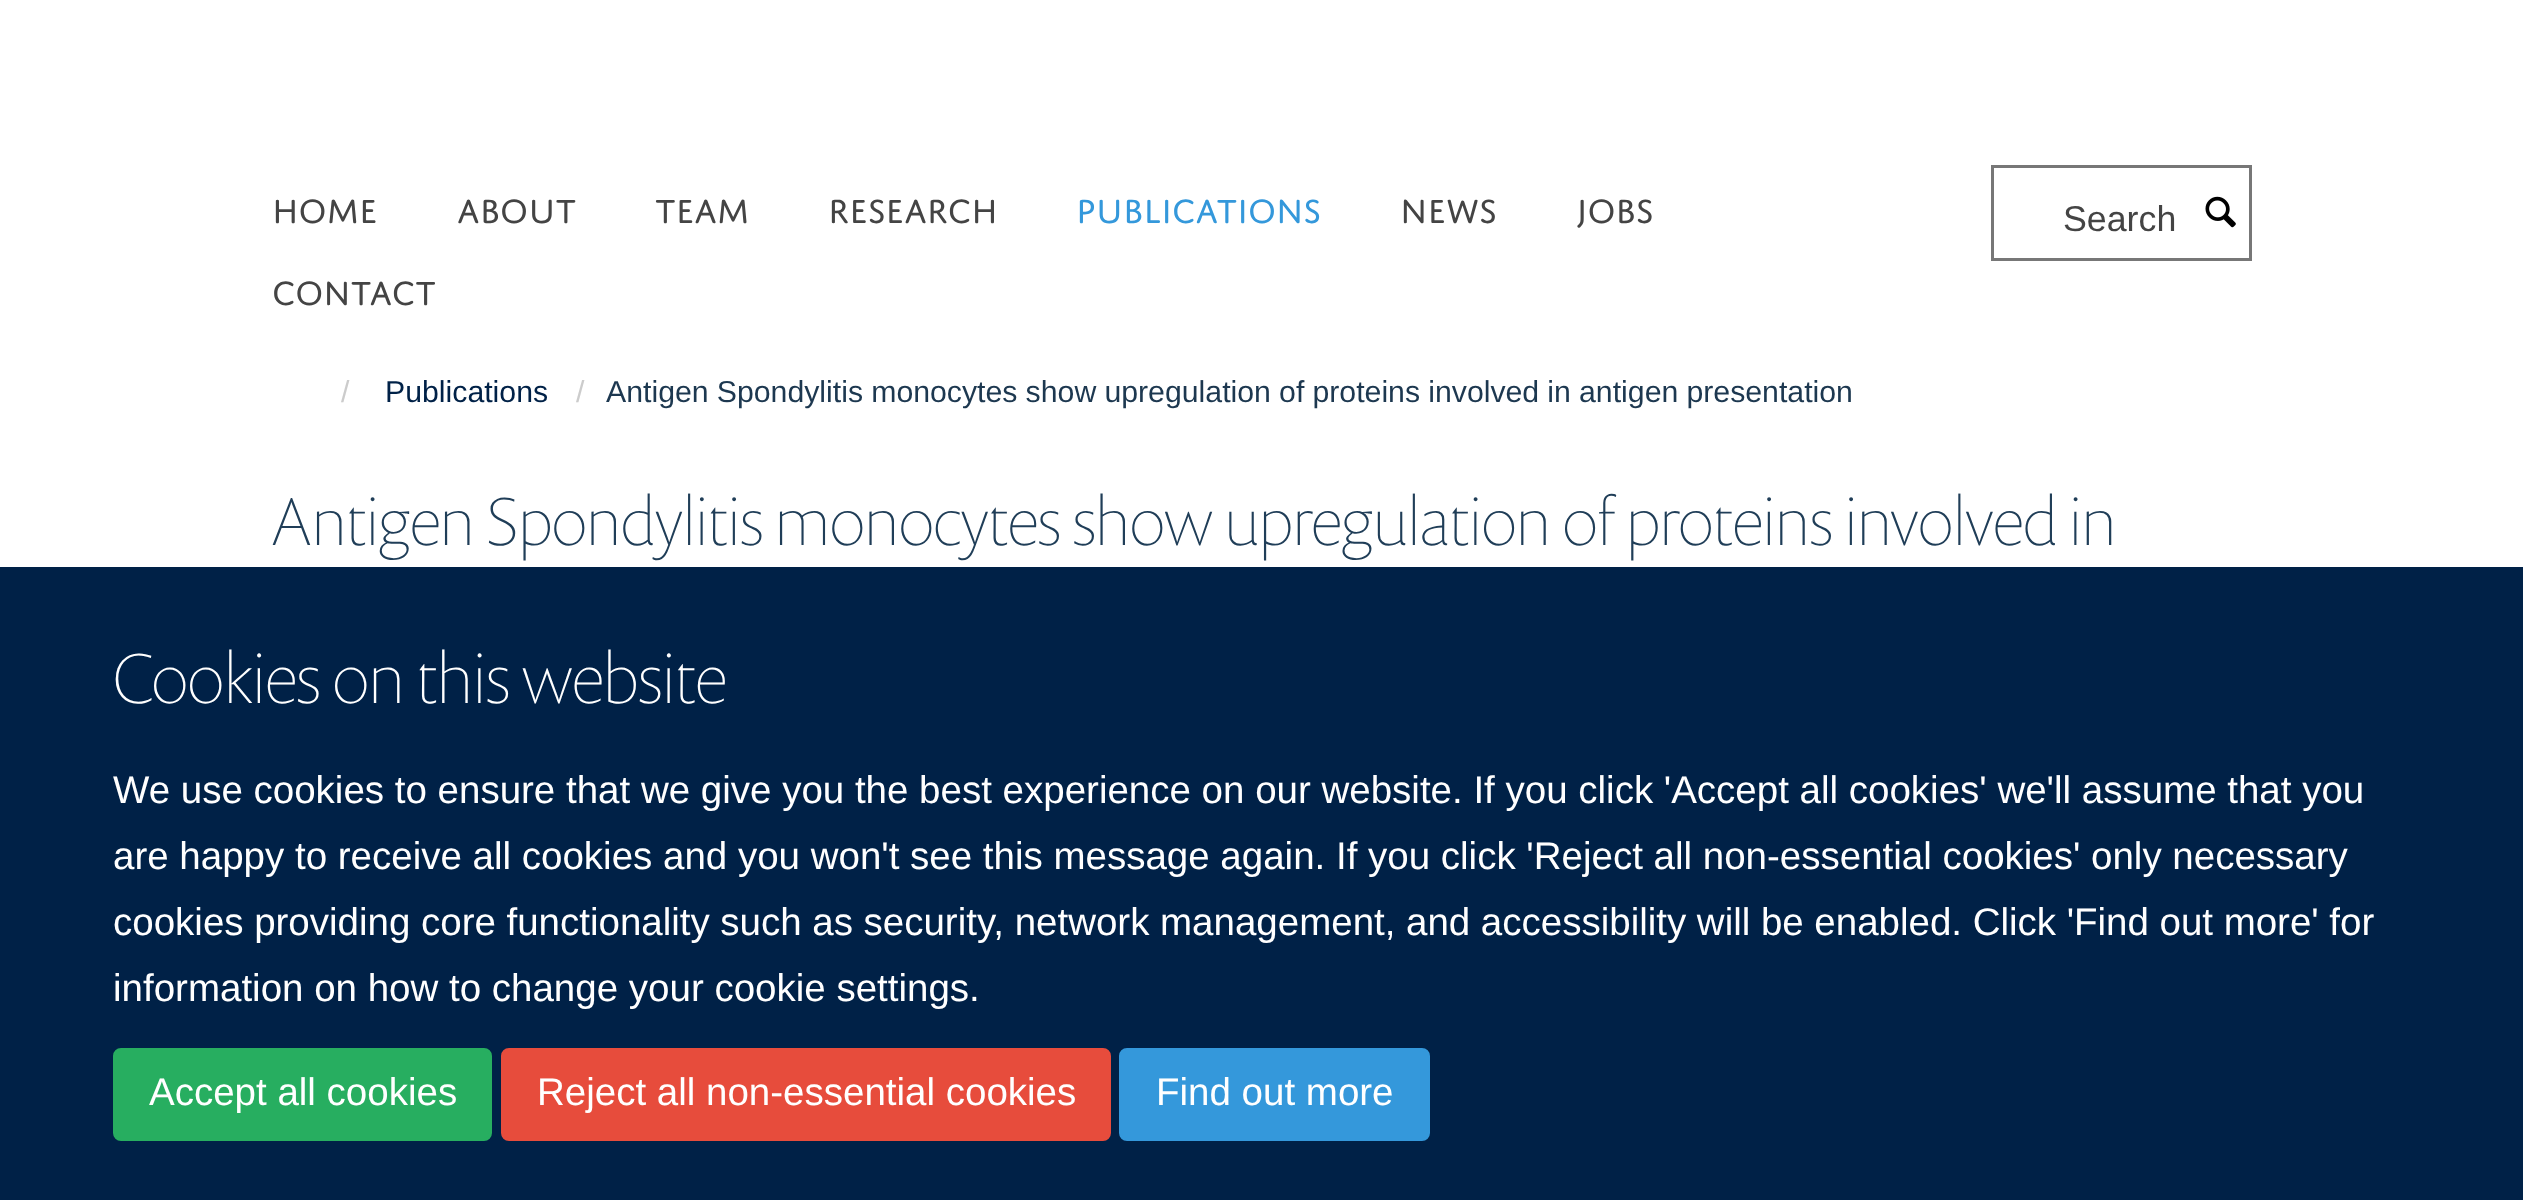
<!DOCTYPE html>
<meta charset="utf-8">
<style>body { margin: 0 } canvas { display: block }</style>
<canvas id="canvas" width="2523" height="1200"></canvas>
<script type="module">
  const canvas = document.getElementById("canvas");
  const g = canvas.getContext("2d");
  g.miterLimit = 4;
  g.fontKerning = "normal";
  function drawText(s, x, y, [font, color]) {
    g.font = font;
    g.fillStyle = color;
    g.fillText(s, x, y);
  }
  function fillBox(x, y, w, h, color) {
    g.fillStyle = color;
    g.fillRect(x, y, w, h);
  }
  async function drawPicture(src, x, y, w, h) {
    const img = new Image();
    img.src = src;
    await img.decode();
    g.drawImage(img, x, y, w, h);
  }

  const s1 = ["35.75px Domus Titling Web", "#444444"];
  const s2 = ["35.75px Domus Titling Web", "#3498DB"];
  const s3 = ["35.75px Liberation Sans", "#444444"];
  const s4 = ["30.25px Liberation Sans", "#CCCCCC"];
  const s5 = ["30.25px Liberation Sans", "#002147"];
  const s6 = ["30.25px Liberation Sans", "#1D3850"];
  const s7 = ["100 68.75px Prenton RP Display", "#203E58"];
  const s8 = ["100 71.5px Prenton RP Display", "#FFFFFF"];
  const s9 = ["38.5px Liberation Sans", "#FFFFFF"];

  fillBox(0, 0, 2523, 1200, "#FFFFFF");
  drawText("HOME", 272, 223, s1);
  drawText("ABOUT", 457, 223, s1);
  drawText("TEAM", 655, 223, s1);
  drawText("RESEARCH", 828, 223, s1);
  drawText("PUBLICATIONS", 1076, 223, s2);
  drawText("NEWS", 1400, 223, s1);
  drawText("JOBS", 1576, 223, s1);
  drawText("CONTACT", 272, 305, s1);
  g.strokeStyle = "#777777";
  g.lineWidth = 3;
  g.strokeRect(1992.5, 166.5, 258, 93);
  drawText("Search", 2063, 231, s3);
  await drawPicture("pic1.png", 2205, 196, 31, 32);
  drawText("/", 341, 402, s4);
  drawText("Publications", 385, 402, s5);
  drawText("/", 576, 402, s4);
  g.wordSpacing = "-0.25px";
  drawText("Antigen Spondylitis monocytes show upregulation of proteins involved in antigen presentation", 606, 402, s6);
  g.wordSpacing = "0px";
  drawText("Antigen Spondylitis monocytes show upregulation of proteins involved in", 272, 545, s7);
  fillBox(0, 567, 2523, 633, "#002147");
  drawText("Cookies on this website", 113, 703, s8);
  drawText("We use cookies to ensure that we give you the best experience on our website. If you click 'Accept all cookies' we'll assume that you", 113, 803, s9);
  drawText("are happy to receive all cookies and you won't see this message again. If you click 'Reject all non-essential cookies' only necessary", 113, 869, s9);
  g.wordSpacing = "-0.1px";
  drawText("cookies providing core functionality such as security, network management, and accessibility will be enabled. Click 'Find out more' for", 113, 935, s9);
  g.wordSpacing = "0px";
  drawText("information on how to change your cookie settings.", 113, 1001, s9);
  g.fillStyle = "#27AE60";
  g.beginPath();
  g.roundRect(114.5, 1049.5, 376, 90, 6.5);
  g.fill();
  g.strokeStyle = "#27AE60";
  g.stroke();
  drawText("Accept all cookies", 149, 1105, s9);
  g.fillStyle = "#E74C3C";
  g.beginPath();
  g.roundRect(502.5, 1049.5, 607, 90, 6.5);
  g.fill();
  g.strokeStyle = "#E74C3C";
  g.stroke();
  drawText("Reject all non-essential cookies", 537, 1105, s9);
  g.fillStyle = "#3498DB";
  g.beginPath();
  g.roundRect(1120.5, 1049.5, 308, 90, 6.5);
  g.fill();
  g.strokeStyle = "#3498DB";
  g.stroke();
  drawText("Find out more", 1156, 1105, s9);
</script>
